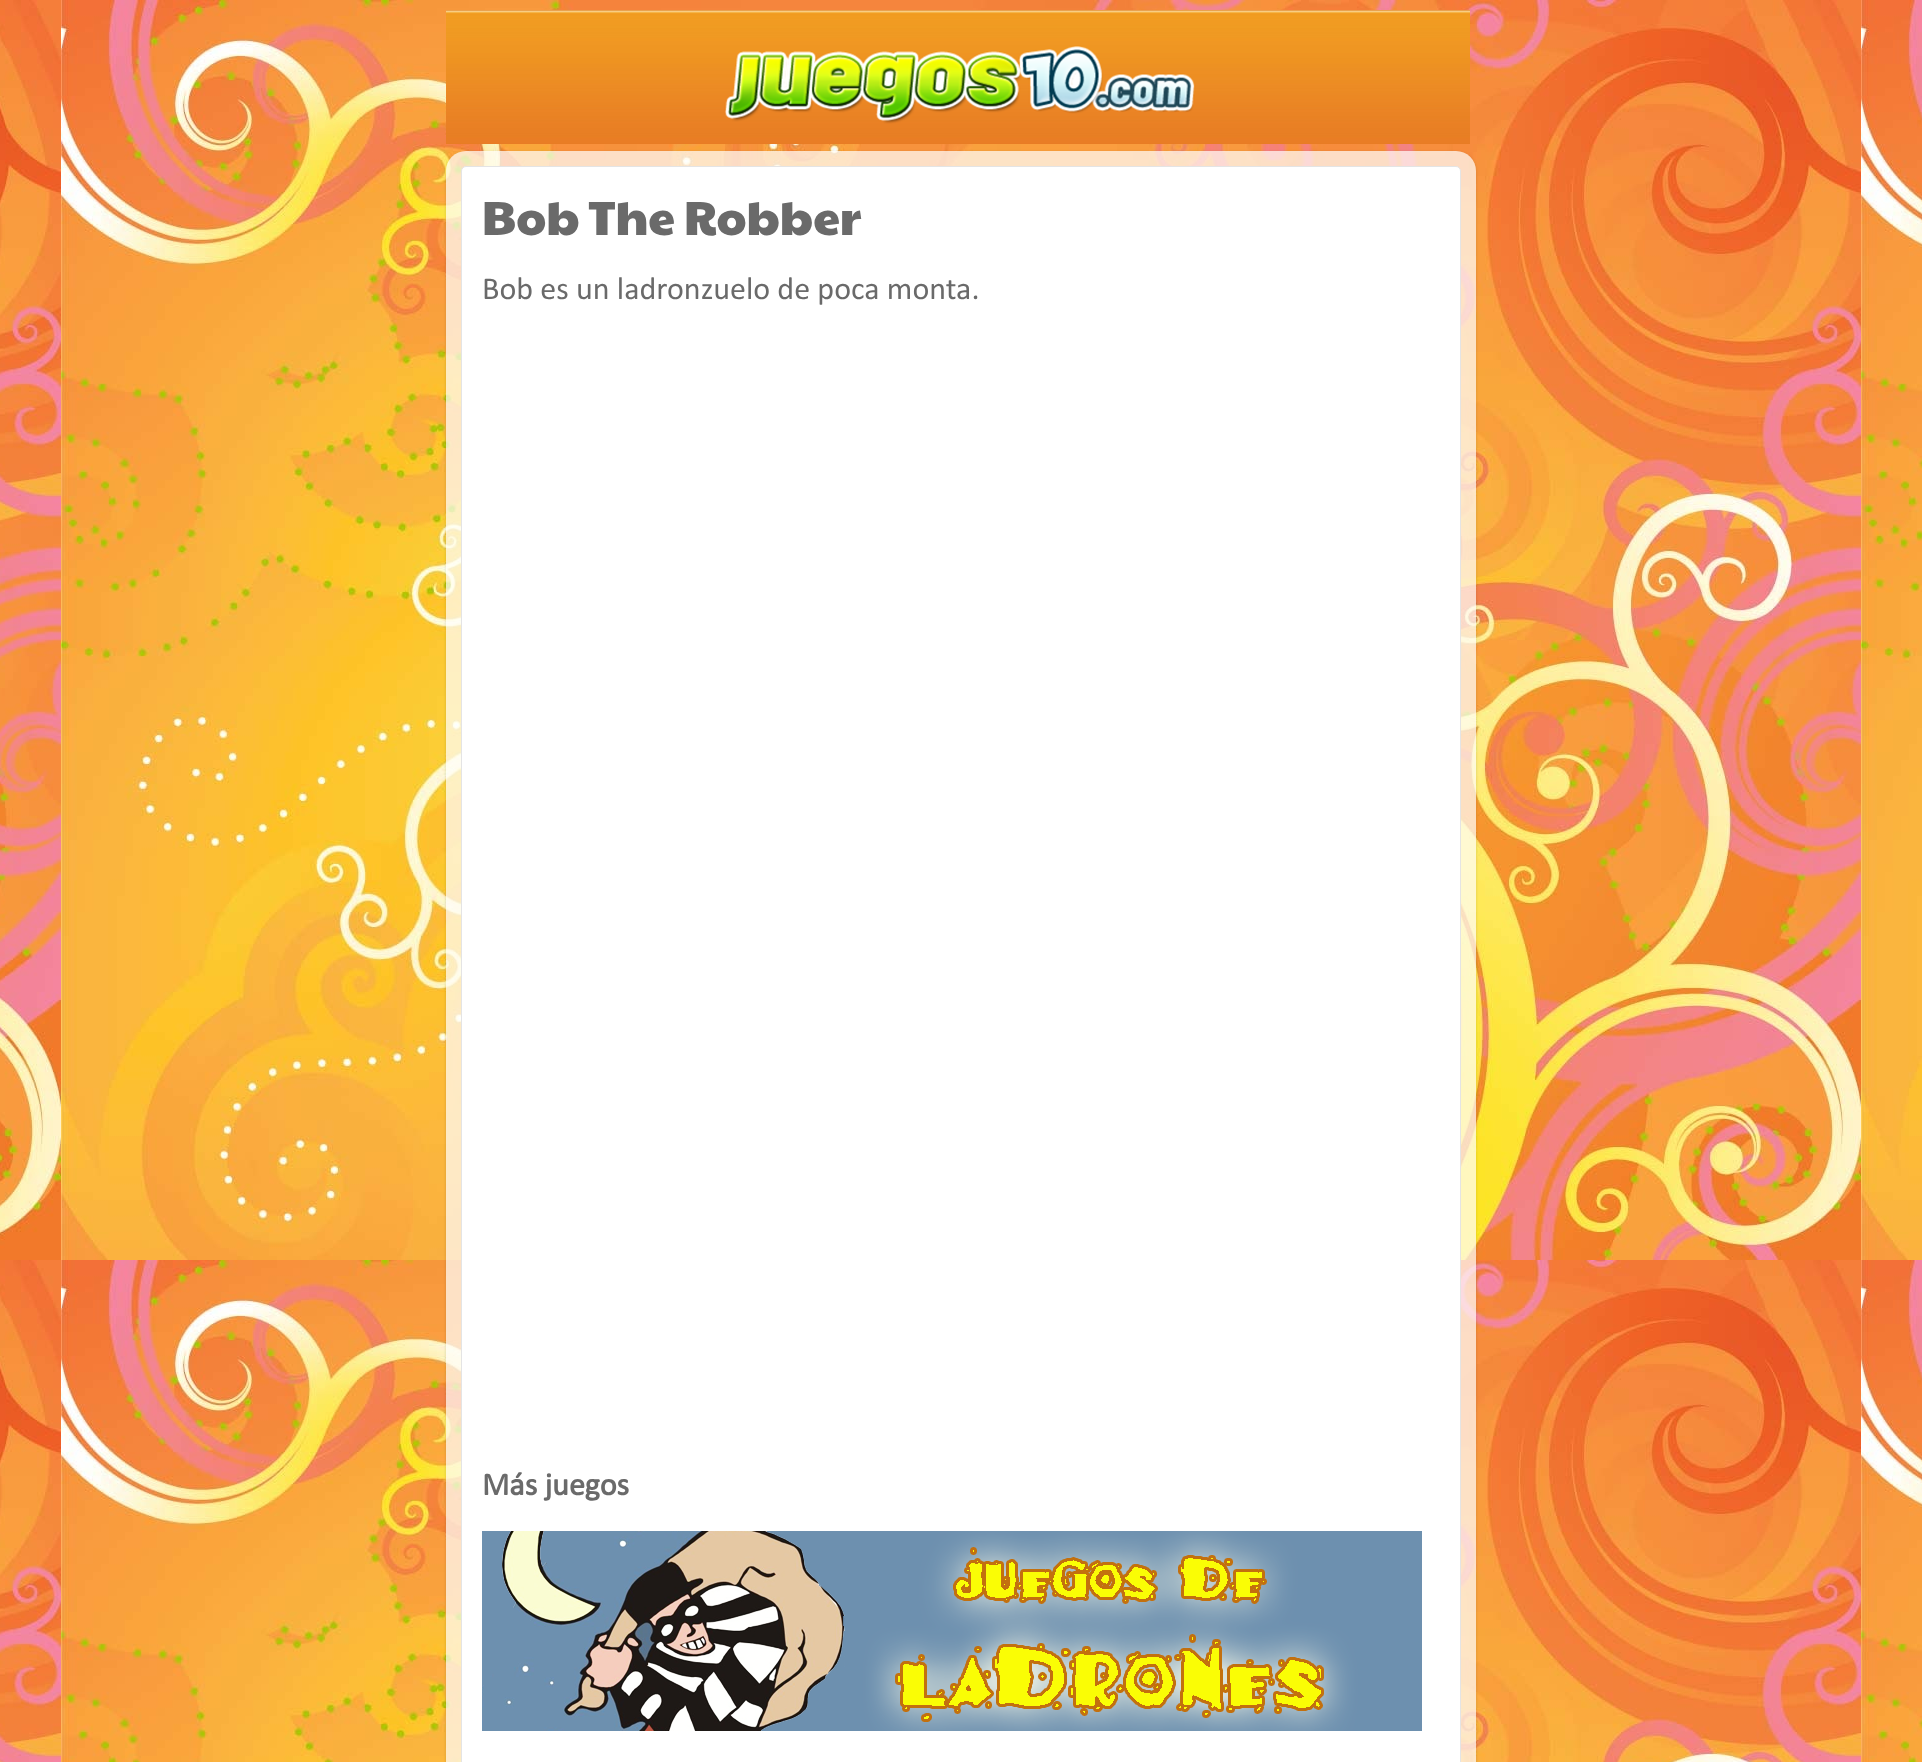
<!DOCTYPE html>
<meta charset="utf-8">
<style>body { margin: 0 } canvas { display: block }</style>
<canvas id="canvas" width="1922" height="1762"></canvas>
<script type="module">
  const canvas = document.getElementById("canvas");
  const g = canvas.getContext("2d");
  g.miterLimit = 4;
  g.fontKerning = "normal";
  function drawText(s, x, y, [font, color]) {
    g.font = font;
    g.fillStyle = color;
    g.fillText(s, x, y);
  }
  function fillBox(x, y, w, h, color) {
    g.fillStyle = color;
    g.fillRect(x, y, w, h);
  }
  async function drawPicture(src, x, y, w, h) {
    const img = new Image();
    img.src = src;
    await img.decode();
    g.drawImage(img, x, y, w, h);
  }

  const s1 = ["48px Paytone One", "#6A6A6A"];
  const s2 = ["32px Calibri", "#6A6A6A"];
  const s3 = ["bold 32px Calibri", "#6A6A6A"];

  fillBox(0, 0, 1922, 1762, "#FFFFFF");
  await drawPicture("pic1.png", 0, 0, 1922, 1762);
  await drawPicture("pic2.png", 446, 10, 1024, 134);
  g.save();
  g.beginPath();
  g.moveTo(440, 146);
  g.lineTo(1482, 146);
  g.lineTo(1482, 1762);
  g.lineTo(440, 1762);
  g.closePath();
  g.moveTo(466, 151);
  g.lineTo(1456, 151);
  g.bezierCurveTo(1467, 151, 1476, 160, 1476, 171);
  g.lineTo(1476, 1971);
  g.lineTo(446, 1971);
  g.lineTo(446, 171);
  g.bezierCurveTo(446, 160, 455, 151, 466, 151);
  g.closePath();
  g.clip("evenodd");
  g.fillStyle = "rgba(0, 0, 0, 0.15)";
  g.filter = "blur(1.5px)";
  g.beginPath();
  g.roundRect(446, 152, 1030, 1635, 20);
  g.fill();
  g.filter = "none";
  g.restore();
  await drawPicture("pic3.png", 446, 151, 1030, 1611);
  g.beginPath();
  g.roundRect(461.5, 166.5, 999, 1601, 4.5);
  g.fill();
  g.strokeStyle = "#E4E4E4";
  g.stroke();
  drawText("Bob The Robber", 482, 235, s1);
  drawText("Bob es un ladronzuelo de poca monta.", 482, 299, s2);
  drawText("Más juegos", 482, 1495, s3);
  await drawPicture("pic4.png", 482, 1531, 940, 200);
</script>
